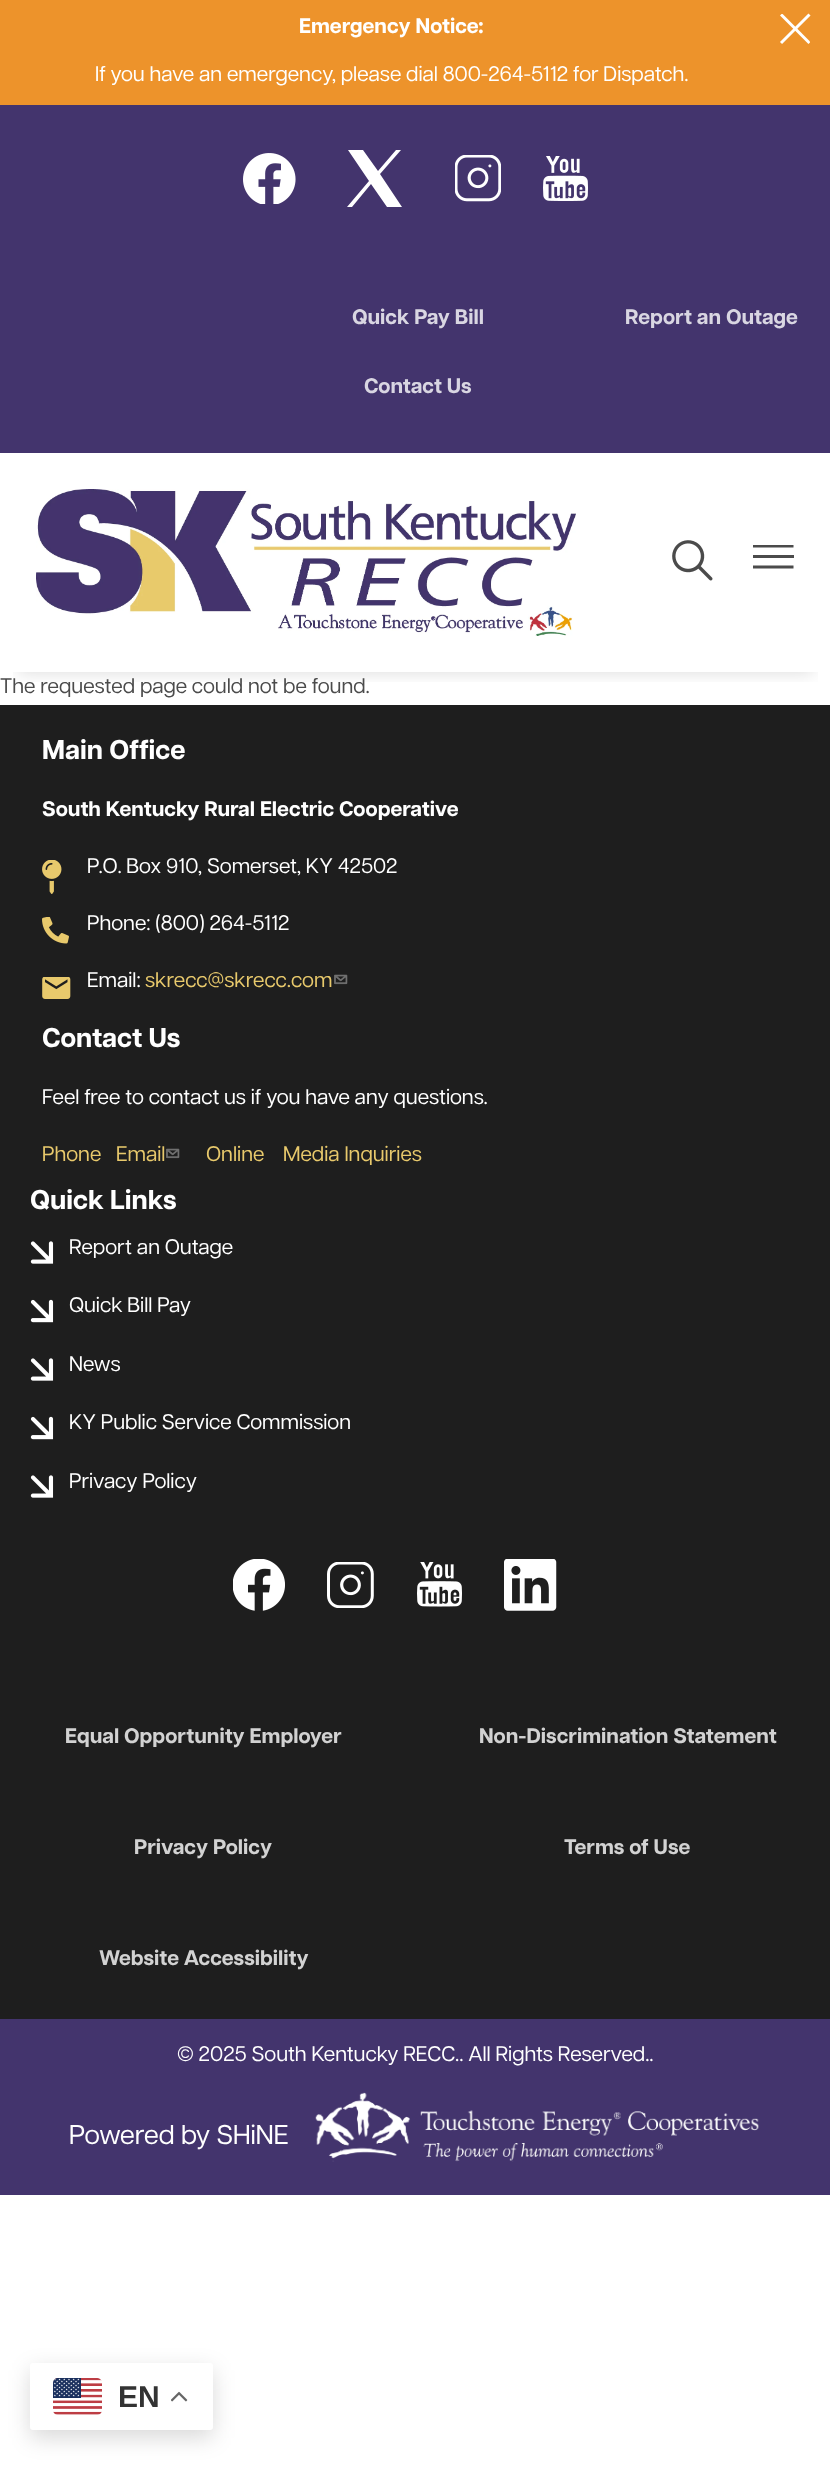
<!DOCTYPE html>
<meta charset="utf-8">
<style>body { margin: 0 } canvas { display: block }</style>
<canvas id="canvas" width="830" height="2471"></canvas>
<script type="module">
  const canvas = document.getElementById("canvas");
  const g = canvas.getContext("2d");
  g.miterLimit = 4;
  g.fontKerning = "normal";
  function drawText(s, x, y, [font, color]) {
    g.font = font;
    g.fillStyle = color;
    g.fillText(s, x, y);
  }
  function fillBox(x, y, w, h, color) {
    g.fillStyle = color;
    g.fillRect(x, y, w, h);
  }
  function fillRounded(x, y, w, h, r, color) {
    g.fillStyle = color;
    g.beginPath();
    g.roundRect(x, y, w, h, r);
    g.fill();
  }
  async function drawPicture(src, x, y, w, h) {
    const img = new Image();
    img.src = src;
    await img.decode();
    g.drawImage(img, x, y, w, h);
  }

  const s1 = ["bold 21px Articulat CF", "#FFFFFF"];
  const s2 = ["21px Articulat CF", "#FFFFFF"];
  const s3 = ["bold 21px Articulat CF", "#D9D6E2"];
  const s4 = ["bold 30px Liberation Sans", "#333333"];
  const s5 = ["21px Articulat CF", "#4B4B4B"];
  const s6 = ["bold 27px Articulat CF", "#FFFFFF"];
  const s7 = ["21px Articulat CF", "#E8C96C"];
  const s8 = ["bold 21px Articulat CF", "#D2D2D2"];
  const s9 = ["27px Articulat CF", "#FFFFFF"];

  fillBox(0, 0, 830, 2471, "#FFFFFF");
  fillBox(0, 0, 830, 105, "#ED932B");
  drawText("Emergency Notice:", 299, 33, s1);
  g.save();
  g.beginPath();
  g.rect(780, 14, 30, 31);
  g.clip();
  g.beginPath();
  g.moveTo(781, 14.5);
  g.lineTo(809.5, 43);
  g.strokeStyle = "#FFFFFF";
  g.lineWidth = 3;
  g.stroke();
  g.restore();
  g.beginPath();
  g.moveTo(781, 43);
  g.lineTo(809.5, 14.5);
  g.strokeStyle = "#FFFFFF";
  g.lineWidth = 3;
  g.stroke();
  drawText("If you have an emergency, please dial 800-264-5112 for Dispatch.", 95, 81, s2);
  fillBox(0, 105, 830, 348, "#43346D");
  await drawPicture("pic1.png", 243, 153, 53, 51);
  g.fillStyle = "#FFFFFF";
  g.beginPath();
  g.moveTo(348, 150);
  g.lineTo(369, 181);
  g.lineTo(347, 207);
  g.lineTo(352, 207);
  g.lineTo(371, 184);
  g.lineTo(387, 207);
  g.lineTo(402, 207);
  g.lineTo(380, 174);
  g.lineTo(401, 150);
  g.lineTo(396, 150);
  g.lineTo(378, 171);
  g.lineTo(363, 150);
  g.closePath();
  g.fill();
  await drawPicture("pic2.png", 455, 155, 46, 47);
  await drawPicture("pic3.png", 543, 156, 45, 45);
  drawText("Quick Pay Bill", 352, 324, s3);
  drawText("Report an Outage", 625, 324, s3);
  drawText("Contact Us", 364, 393, s3);
  g.fillStyle = "rgba(0, 0, 0, 0.15)";
  g.filter = "blur(11px)";
  g.beginPath();
  g.roundRect(30, 2370, 183, 68, 3);
  g.fill();
  g.filter = "none";
  fillRounded(30, 2363, 183, 67, 3, "#FFFFFF");
  await drawPicture("pic4.png", 53, 2378, 49, 37);
  drawText("EN", 118, 2407, s4);
  await drawPicture("pic5.png", 171, 2391, 17, 11);
  g.save();
  g.beginPath();
  g.rect(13, 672, 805, 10);
  g.clip();
  g.fillStyle = "rgba(0, 0, 0, 0.15)";
  g.filter = "blur(9px)";
  g.beginPath();
  g.rect(18, 489, 795, 183);
  g.fill();
  g.filter = "none";
  g.restore();
  await drawPicture("pic6.png", 36, 489, 540, 147);
  await drawPicture("pic7.png", 672, 540, 41, 41);
  g.save();
  g.beginPath();
  g.rect(753, 545, 41, 24);
  g.clip();
  g.beginPath();
  g.moveTo(753, 546);
  g.lineTo(793.5, 546);
  g.strokeStyle = "#4B4B4B";
  g.stroke();
  g.restore();
  fillBox(753, 555, 41, 3, "#4B4B4B");
  g.beginPath();
  g.moveTo(753, 567);
  g.lineTo(793.5, 567);
  g.strokeStyle = "#4B4B4B";
  g.stroke();
  drawText("The requested page could not be found.", 0, 693, s5);
  fillBox(0, 705, 830, 1314, "#1E1E1E");
  drawText("Main Office", 42, 759, s6);
  drawText("South Kentucky Rural Electric Cooperative", 42, 816, s1);
  await drawPicture("pic8.png", 42, 860, 20, 34);
  drawText("P.O. Box 910, Somerset, KY 42502", 87, 873, s2);
  await drawPicture("pic9.png", 42, 917, 27, 27);
  drawText("Phone: (800) 264-5112", 87, 930, s2);
  await drawPicture("pic10.png", 42, 977, 29, 22);
  drawText("Email:", 87, 987, s2);
  drawText("skrecc@skrecc.com", 145, 987, s7);
  await drawPicture("pic11.png", 334, 974, 14, 11);
  drawText("Contact Us", 42, 1047, s6);
  drawText("Feel free to contact us if you have any questions.", 42, 1104, s2);
  drawText("Phone", 42, 1161, s7);
  drawText("Email", 116, 1161, s7);
  await drawPicture("pic11.png", 166, 1148, 14, 11);
  drawText("Online", 206, 1161, s7);
  drawText("Media Inquiries", 283, 1161, s7);
  drawText("Quick Links", 30, 1209, s6);
  await drawPicture("pic12.png", 30, 1241, 24, 23);
  drawText("Report an Outage", 69, 1254, s2);
  await drawPicture("pic13.png", 30, 1299, 24, 24);
  drawText("Quick Bill Pay", 69, 1312, s2);
  await drawPicture("pic12.png", 30, 1358, 24, 23);
  drawText("News", 69, 1371, s2);
  await drawPicture("pic13.png", 30, 1416, 24, 24);
  drawText("KY Public Service Commission", 69, 1429, s2);
  await drawPicture("pic12.png", 30, 1475, 24, 23);
  drawText("Privacy Policy", 69, 1488, s2);
  await drawPicture("pic14.png", 233, 1559, 52, 52);
  await drawPicture("pic15.png", 327, 1562, 47, 46);
  await drawPicture("pic16.png", 417, 1562, 45, 45);
  await drawPicture("pic17.png", 504, 1559, 53, 52);
  drawText("Equal Opportunity Employer", 65, 1743, s8);
  drawText("Non-Discrimination Statement", 479, 1743, s8);
  drawText("Privacy Policy", 134, 1854, s8);
  drawText("Terms of Use", 564, 1854, s8);
  drawText("Website Accessibility", 99, 1965, s8);
  fillBox(0, 2019, 830, 176, "#43346D");
  drawText("© 2025 South Kentucky RECC.. All Rights Reserved..", 177, 2061, s2);
  drawText("Powered by SHiNE", 69, 2144, s9);
  await drawPicture("pic18.png", 315, 2092, 444, 70);
</script>
